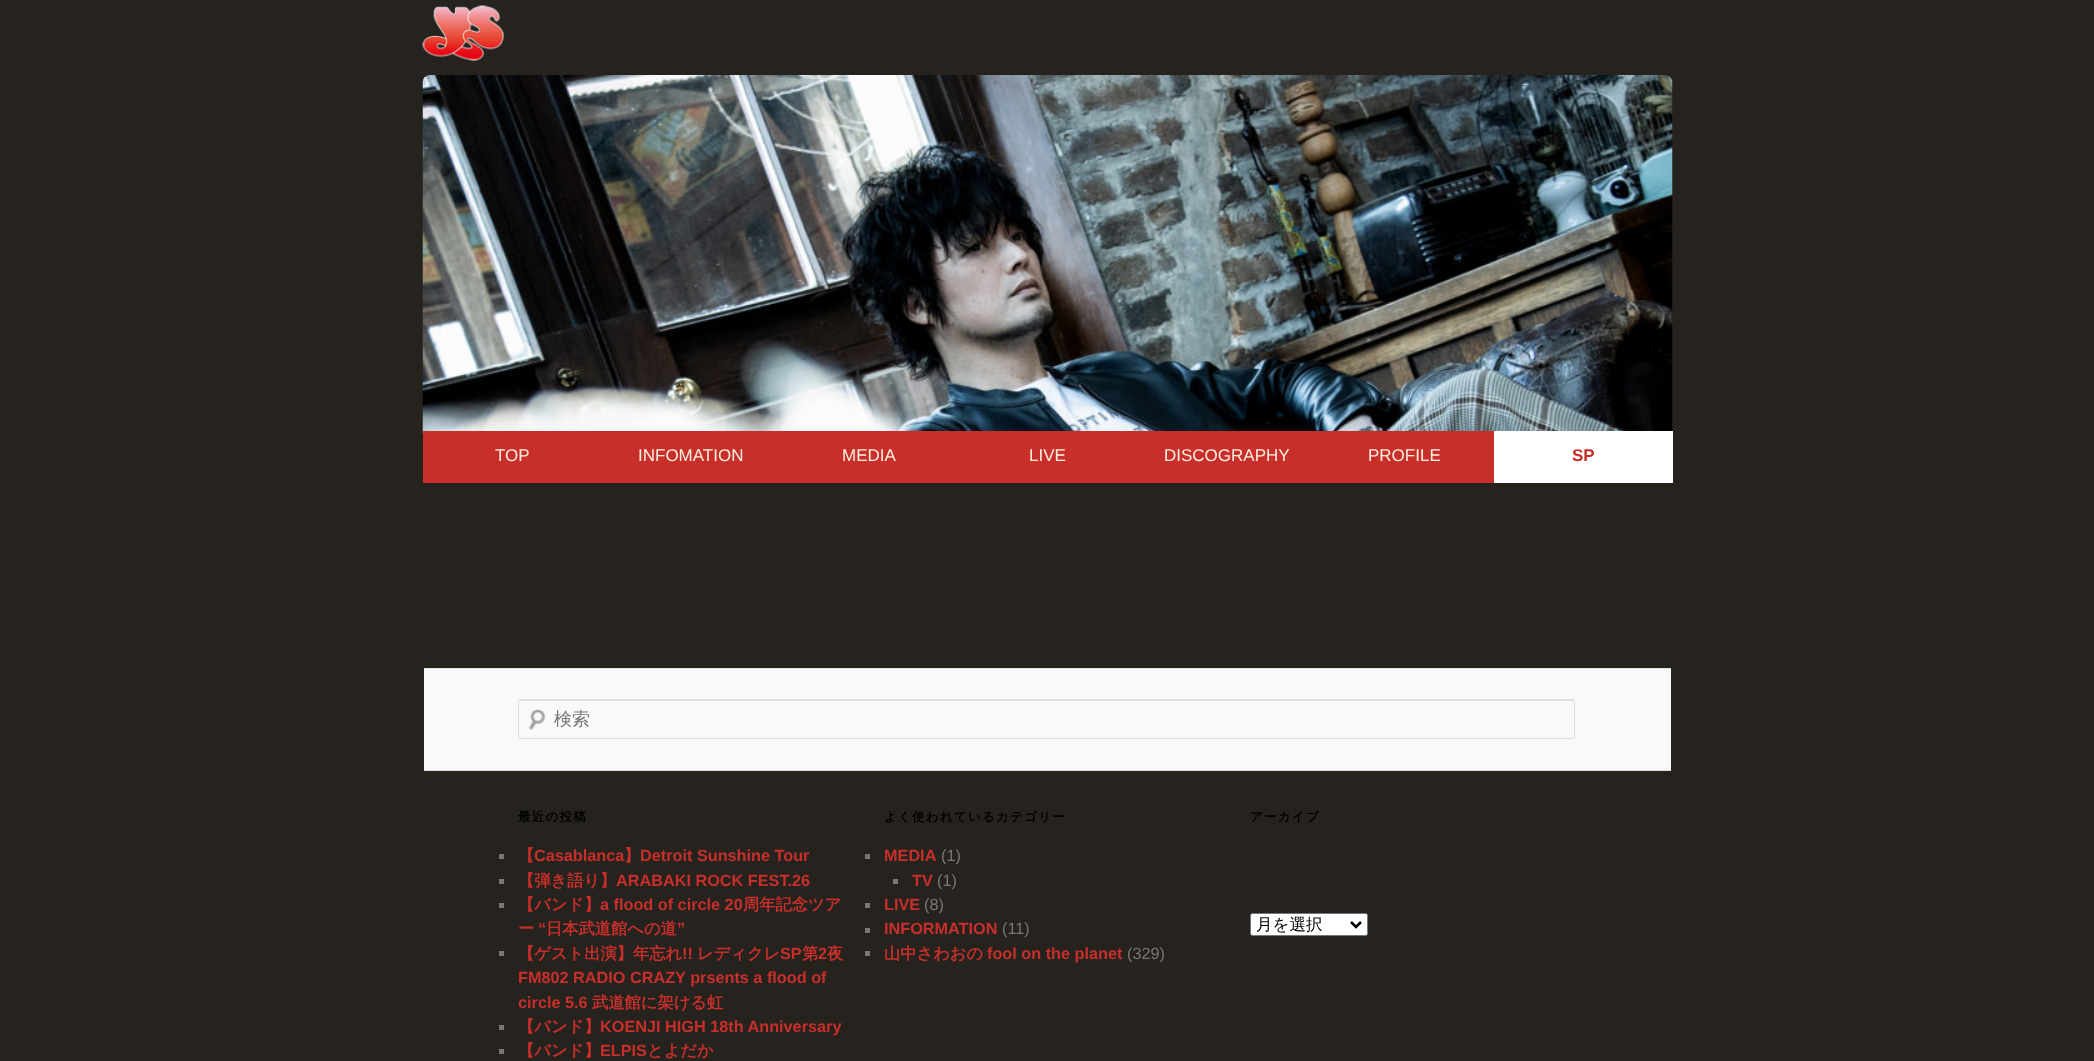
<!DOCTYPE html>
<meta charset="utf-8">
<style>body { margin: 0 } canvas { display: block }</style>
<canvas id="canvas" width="2094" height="1061"></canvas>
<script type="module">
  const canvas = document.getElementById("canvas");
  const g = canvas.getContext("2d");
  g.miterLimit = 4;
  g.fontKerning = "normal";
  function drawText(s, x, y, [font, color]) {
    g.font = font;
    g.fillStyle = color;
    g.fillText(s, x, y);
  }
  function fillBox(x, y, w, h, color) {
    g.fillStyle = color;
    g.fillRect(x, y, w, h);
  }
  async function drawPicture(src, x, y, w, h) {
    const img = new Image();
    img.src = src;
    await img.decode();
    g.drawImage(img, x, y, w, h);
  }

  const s1 = ["17px Liberation Sans", "#FDF0DF"];
  const s2 = ["bold 17px Liberation Sans", "#C82F2A"];
  const s3 = ["500 18px WenQuanYi Zen Hei", "#777777"];
  const s4 = ["bold 12.5px WenQuanYi Zen Hei", "#000000"];
  const s5 = ["bold 16.25px WenQuanYi Zen Hei", "#C82F2A"];
  const s6 = ["bold 16.25px Liberation Sans", "#C82F2A"];
  const s7 = ["16.25px Liberation Sans", "#777777"];
  const s8 = ["500 16.5px WenQuanYi Zen Hei", "#000000"];

  fillBox(0, 0, 2094, 1061, "#26231F");
  await drawPicture("pic1.png", 422, 5, 82, 56);
  await drawPicture("pic2.png", 422, 75, 1251, 359);
  fillBox(423, 431, 1071, 52, "#C82F2A");
  drawText("TOP", 495, 461, s1);
  drawText("INFOMATION", 638, 461, s1);
  drawText("MEDIA", 842, 461, s1);
  drawText("LIVE", 1029, 461, s1);
  drawText("DISCOGRAPHY", 1164, 461, s1);
  drawText("PROFILE", 1368, 461, s1);
  fillBox(1494, 431, 179, 52, "#FFFFFF");
  drawText("SP", 1572, 461, s2);
  fillBox(424, 669, 1247, 101, "#F9F9F9");
  fillBox(424, 668, 1247, 1, "#DDDDDD");
  fillBox(424, 770, 1247, 1, "#DDDDDD");
  await drawPicture("pic3.png", 528, 709, 18, 21);
  g.fillStyle = "#E0E0E0";
  g.beginPath();
  g.moveTo(520, 701);
  g.lineTo(1572, 701);
  g.lineTo(1574, 702);
  g.lineTo(1574, 701);
  g.lineTo(1573, 700);
  g.lineTo(520, 700);
  g.lineTo(519, 702);
  g.closePath();
  g.fill();
  g.beginPath();
  g.roundRect(518.5, 699.5, 1056, 39, 2);
  g.strokeStyle = "#DDDDDD";
  g.stroke();
  drawText("検索", 554, 725, s3);
  g.letterSpacing = "1.25px";
  drawText("最近の投稿", 518, 821, s4);
  fillBox(499, 854, 5, 5, "#777777");
  g.letterSpacing = "0px";
  drawText("【", 518, 861, s5);
  drawText("Casablanca", 534, 861, s6);
  drawText("】", 624, 861, s5);
  drawText("Detroit Sunshine Tour", 640, 861, s6);
  fillBox(499, 879, 5, 5, "#777777");
  drawText("【弾き語り】", 518, 886, s5);
  drawText("ARABAKI ROCK FEST.26", 616, 886, s6);
  fillBox(499, 903, 5, 5, "#777777");
  drawText("【バンド】", 518, 910, s5);
  drawText("a flood of circle 20", 600, 910, s6);
  drawText("周年記念ツア", 743, 910, s5);
  drawText("ー", 518, 934, s5);
  drawText("“", 538, 934, s6);
  drawText("日本武道館への道", 546, 934, s5);
  drawText("”", 677, 934, s6);
  fillBox(499, 951, 5, 5, "#777777");
  drawText("【ゲスト出演】年忘れ", 518, 959, s5);
  drawText("!!", 682, 959, s6);
  drawText("レディクレ", 697, 959, s5);
  drawText("SP", 780, 959, s6);
  drawText("第", 802, 959, s5);
  drawText("2", 818, 959, s6);
  drawText("夜", 827, 959, s5);
  drawText("FM802 RADIO CRAZY prsents a flood of", 518, 983, s6);
  drawText("circle 5.6", 518, 1008, s6);
  drawText("武道館に架ける虹", 592, 1008, s5);
  fillBox(499, 1025, 5, 5, "#777777");
  drawText("【バンド】", 518, 1032, s5);
  drawText("KOENJI HIGH 18th Anniversary", 600, 1032, s6);
  fillBox(499, 1049, 5, 5, "#777777");
  drawText("【バンド】", 518, 1056, s5);
  drawText("ELPIS", 600, 1056, s6);
  drawText("とよだか", 647, 1056, s5);
  g.letterSpacing = "1.25px";
  drawText("よく使われているカテゴリー", 884, 821, s4);
  fillBox(865, 854, 5, 5, "#777777");
  g.letterSpacing = "0px";
  drawText("MEDIA", 884, 861, s6);
  drawText("(1)", 941, 861, s7);
  fillBox(893, 879, 5, 5, "#777777");
  drawText("TV", 912, 886, s6);
  drawText("(1)", 937, 886, s7);
  fillBox(865, 903, 5, 5, "#777777");
  drawText("LIVE", 884, 910, s6);
  drawText("(8)", 924, 910, s7);
  fillBox(865, 928, 5, 5, "#777777");
  drawText("INFORMATION", 884, 934, s6);
  drawText("(11)", 1002, 934, s7);
  fillBox(865, 951, 5, 5, "#777777");
  drawText("山中さわおの", 884, 959, s5);
  drawText("fool on the planet", 987, 959, s6);
  drawText("(329)", 1127, 959, s7);
  g.letterSpacing = "1.25px";
  drawText("アーカイブ", 1250, 821, s4);
  g.fillStyle = "#FFFFFF";
  g.beginPath();
  g.roundRect(1250.5, 913.5, 117, 22, 2);
  g.fill();
  g.strokeStyle = "#767676";
  g.stroke();
  g.beginPath();
  g.moveTo(1351, 922);
  g.lineTo(1356, 927);
  g.lineTo(1361, 922);
  g.strokeStyle = "#000000";
  g.lineWidth = 2.5;
  g.stroke();
  g.letterSpacing = "0px";
  drawText("月を選択", 1256, 930, s8);
</script>
